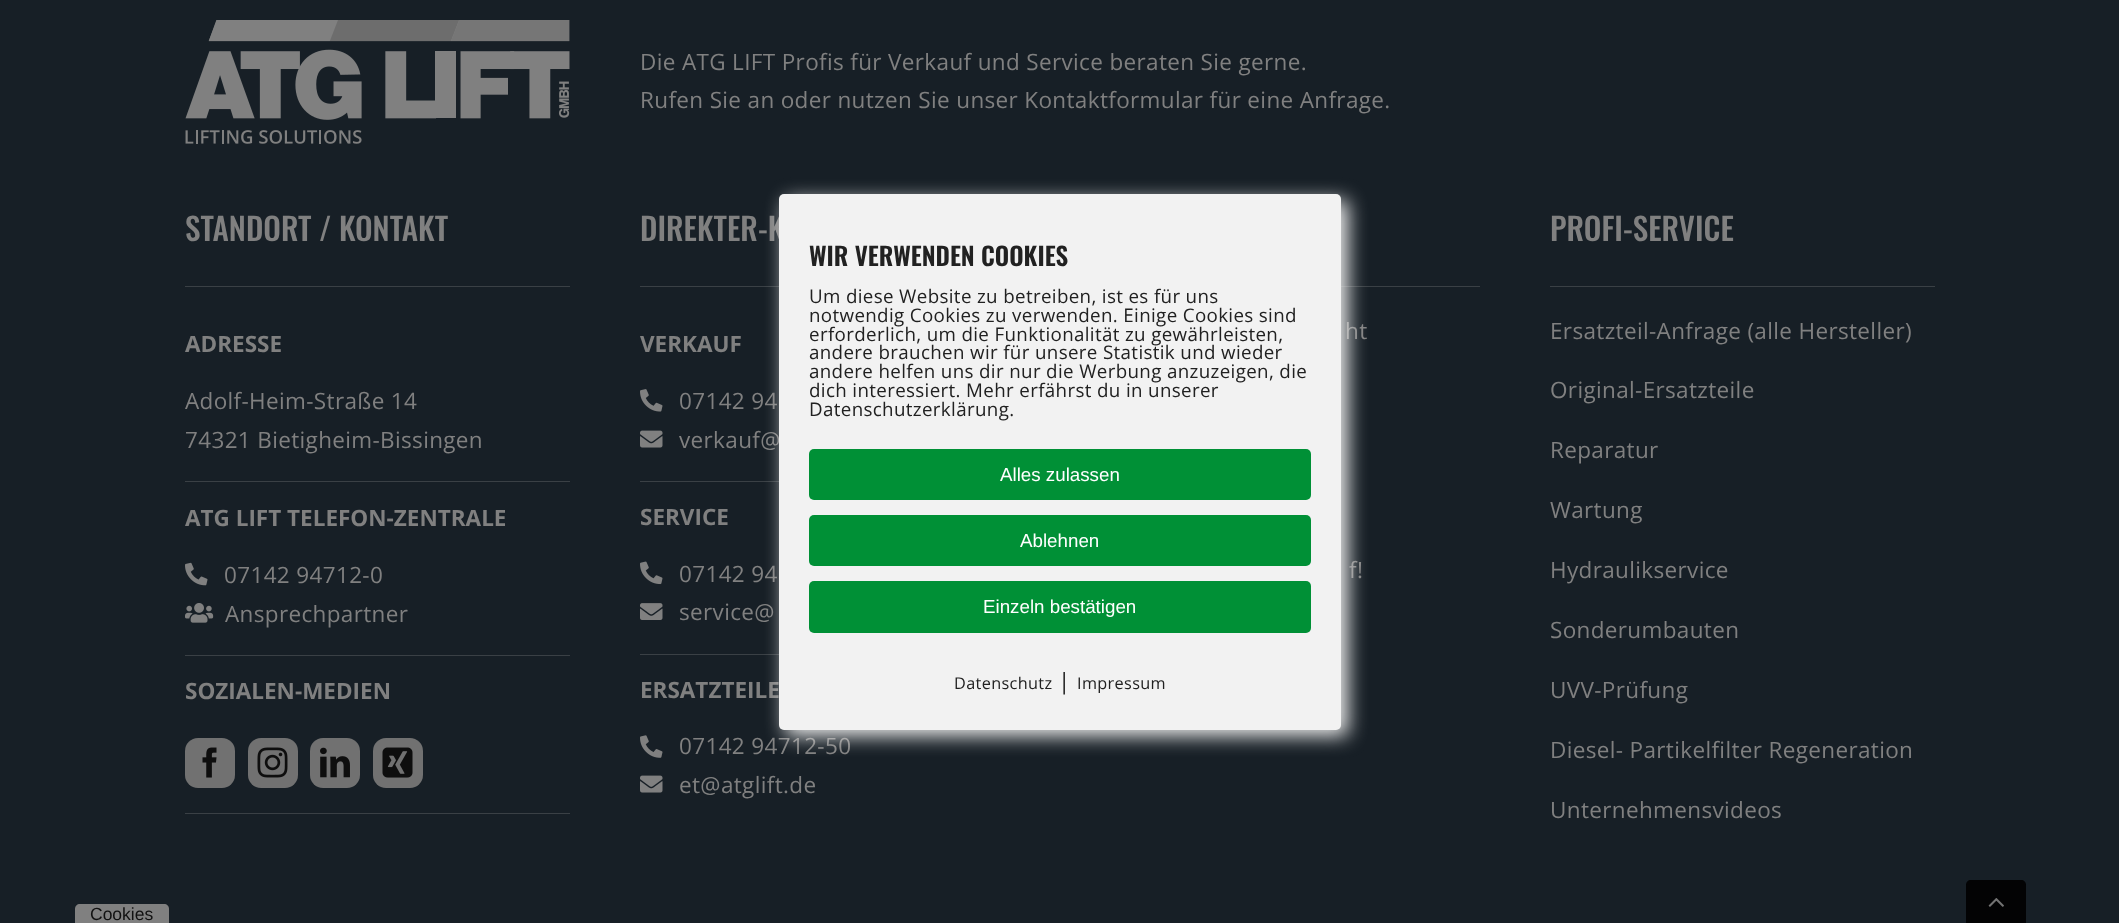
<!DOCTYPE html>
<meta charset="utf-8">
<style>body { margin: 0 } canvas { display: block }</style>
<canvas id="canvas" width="2119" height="923"></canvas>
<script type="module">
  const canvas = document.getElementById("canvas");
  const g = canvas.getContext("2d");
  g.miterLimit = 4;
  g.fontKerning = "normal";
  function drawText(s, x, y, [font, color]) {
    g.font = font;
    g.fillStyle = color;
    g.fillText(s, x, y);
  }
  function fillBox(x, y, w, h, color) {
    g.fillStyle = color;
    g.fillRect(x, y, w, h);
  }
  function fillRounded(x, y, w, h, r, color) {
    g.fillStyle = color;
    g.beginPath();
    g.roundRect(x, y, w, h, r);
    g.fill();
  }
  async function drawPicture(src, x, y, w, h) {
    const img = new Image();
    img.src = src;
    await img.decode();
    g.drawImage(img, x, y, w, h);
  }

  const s1 = ["22.5px Open Sans", "#808080"];
  const s2 = ["500 31.25px Oswald", "#808080"];
  const s3 = ["bold 22.5px Open Sans", "#808080"];
  const s4 = ["600 25px Oswald", "#212121"];
  const s5 = ["18.75px Open Sans", "#212121"];
  const s6 = ["18.75px Liberation Sans", "#FFFFFF"];
  const s7 = ["16.25px Open Sans", "#212121"];
  const s8 = ["22.5px Open Sans", "#212121"];
  const s9 = ["17.5px Liberation Sans", "#111111"];

  fillBox(0, 0, 2119, 923, "#171F26");
  await drawPicture("pic1.png", 185, 20, 385, 124);
  g.letterSpacing = "0.35px";
  drawText("Die ATG LIFT Profis für Verkauf und Service beraten Sie gerne.", 640, 70, s1);
  drawText("Rufen Sie an oder nutzen Sie unser Kontaktformular für eine Anfrage.", 640, 108, s1);
  g.letterSpacing = "0px";
  drawText("STANDORT / KONTAKT", 185, 241, s2);
  fillBox(185, 286, 385, 1, "#3A4045");
  drawText("ADRESSE", 185, 352, s3);
  g.letterSpacing = "0.35px";
  drawText("Adolf-Heim-Straße 14", 185, 409, s1);
  drawText("74321 Bietigheim-Bissingen", 185, 448, s1);
  fillBox(185, 481, 385, 1, "#3A4045");
  g.letterSpacing = "0px";
  drawText("ATG LIFT TELEFON-ZENTRALE", 185, 526, s3);
  await drawPicture("pic2.png", 185, 562, 23, 24);
  g.letterSpacing = "0.35px";
  drawText("07142 94712-0", 224, 583, s1);
  await drawPicture("pic3.png", 185, 603, 29, 20);
  drawText("Ansprechpartner", 225, 622, s1);
  fillBox(185, 655, 385, 1, "#3A4045");
  g.letterSpacing = "0px";
  drawText("SOZIALEN-MEDIEN", 185, 699, s3);
  fillRounded(185, 738, 50, 50, 13, "#717171");
  await drawPicture("pic4.png", 202, 747, 15, 31);
  fillRounded(248, 738, 50, 50, 13, "#717171");
  await drawPicture("pic5.png", 257, 747, 31, 31);
  fillRounded(310, 738, 50, 50, 13, "#717171");
  await drawPicture("pic6.png", 320, 747, 30, 31);
  fillRounded(373, 738, 50, 50, 13, "#717171");
  await drawPicture("pic7.png", 382, 747, 31, 31);
  fillBox(185, 813, 385, 1, "#3A4045");
  drawText("DIREKTER-K", 640, 241, s2);
  fillBox(640, 286, 139, 1, "#3A4045");
  drawText("VERKAUF", 640, 352, s3);
  await drawPicture("pic8.png", 640, 389, 23, 23);
  g.letterSpacing = "0.35px";
  drawText("07142 94", 679, 409, s1);
  await drawPicture("pic9.png", 640, 430, 23, 18);
  drawText("verkauf@", 679, 448, s1);
  fillBox(640, 481, 139, 1, "#3A4045");
  g.letterSpacing = "0px";
  drawText("SERVICE", 640, 525, s3);
  await drawPicture("pic10.png", 640, 561, 23, 24);
  g.letterSpacing = "0.35px";
  drawText("07142 94", 679, 582, s1);
  await drawPicture("pic11.png", 640, 603, 23, 17);
  drawText("service@", 679, 620, s1);
  fillBox(640, 654, 139, 1, "#3A4045");
  g.letterSpacing = "0px";
  drawText("ERSATZTEILE", 640, 698, s3);
  await drawPicture("pic12.png", 640, 735, 23, 23);
  g.letterSpacing = "0.35px";
  drawText("07142 94712-50", 679, 754, s1);
  await drawPicture("pic9.png", 640, 775, 23, 18);
  drawText("et@atglift.de", 679, 793, s1);
  fillBox(1341, 286, 139, 1, "#3A4045");
  drawText("ht", 1345, 339, s1);
  drawText("f!", 1349, 578, s1);
  g.letterSpacing = "0px";
  drawText("PROFI-SERVICE", 1550, 241, s2);
  fillBox(1550, 286, 385, 1, "#3A4045");
  g.letterSpacing = "0.35px";
  drawText("Ersatzteil-Anfrage (alle Hersteller)", 1550, 339, s1);
  drawText("Original-Ersatzteile", 1550, 398, s1);
  drawText("Reparatur", 1550, 458, s1);
  drawText("Wartung", 1550, 518, s1);
  drawText("Hydraulikservice", 1550, 578, s1);
  drawText("Sonderumbauten", 1550, 638, s1);
  drawText("UVV-Prüfung", 1550, 698, s1);
  drawText("Diesel- Partikelfilter Regeneration", 1550, 758, s1);
  drawText("Unternehmensvideos", 1550, 818, s1);
  g.fillStyle = "#EEEEEE";
  g.filter = "blur(9.5px)";
  g.beginPath();
  g.roundRect(785, 200, 563, 536, 5);
  g.fill();
  g.filter = "none";
  fillRounded(779, 194, 562, 536, 5, "#F2F2F2");
  g.letterSpacing = "0px";
  drawText("WIR VERWENDEN COOKIES", 809, 266, s4);
  g.letterSpacing = "0.35px";
  drawText("Um diese Website zu betreiben, ist es für uns", 809, 303, s5);
  drawText("notwendig Cookies zu verwenden. Einige Cookies sind", 809, 322, s5);
  drawText("erforderlich, um die Funktionalität zu gewährleisten,", 809, 341, s5);
  drawText("andere brauchen wir für unsere Statistik und wieder", 809, 359, s5);
  drawText("andere helfen uns dir nur die Werbung anzuzeigen, die", 809, 378, s5);
  drawText("dich interessiert. Mehr erfährst du in unserer", 809, 397, s5);
  drawText("Datenschutzerklärung.", 809, 416, s5);
  fillRounded(809, 449, 502, 51, 5, "#009036");
  g.letterSpacing = "0px";
  drawText("Alles zulassen", 1000, 481, s6);
  fillRounded(809, 515, 502, 51, 5, "#009036");
  drawText("Ablehnen", 1020, 547, s6);
  fillRounded(809, 581, 502, 52, 5, "#009036");
  drawText("Einzeln bestätigen", 983, 613, s6);
  g.letterSpacing = "0.35px";
  drawText("Datenschutz", 954, 689, s7);
  drawText("|", 1058, 689, s8);
  drawText("Impressum", 1077, 689, s7);
  g.fillStyle = "#808080";
  g.beginPath();
  g.moveTo(80, 904);
  g.lineTo(164, 904);
  g.bezierCurveTo(167, 904, 169, 906, 169, 909);
  g.lineTo(169, 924);
  g.lineTo(75, 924);
  g.lineTo(75, 909);
  g.bezierCurveTo(75, 906, 77, 904, 80, 904);
  g.closePath();
  g.fill();
  g.letterSpacing = "0px";
  drawText("Cookies", 90, 920, s9);
  g.fillStyle = "#030304";
  g.beginPath();
  g.moveTo(1971, 880);
  g.lineTo(2021, 880);
  g.bezierCurveTo(2024, 880, 2026, 882, 2026, 885);
  g.lineTo(2026, 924);
  g.lineTo(1966, 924);
  g.lineTo(1966, 885);
  g.bezierCurveTo(1966, 882, 1968, 880, 1971, 880);
  g.closePath();
  g.fill();
  await drawPicture("pic13.png", 1988, 898, 16, 9);
</script>
